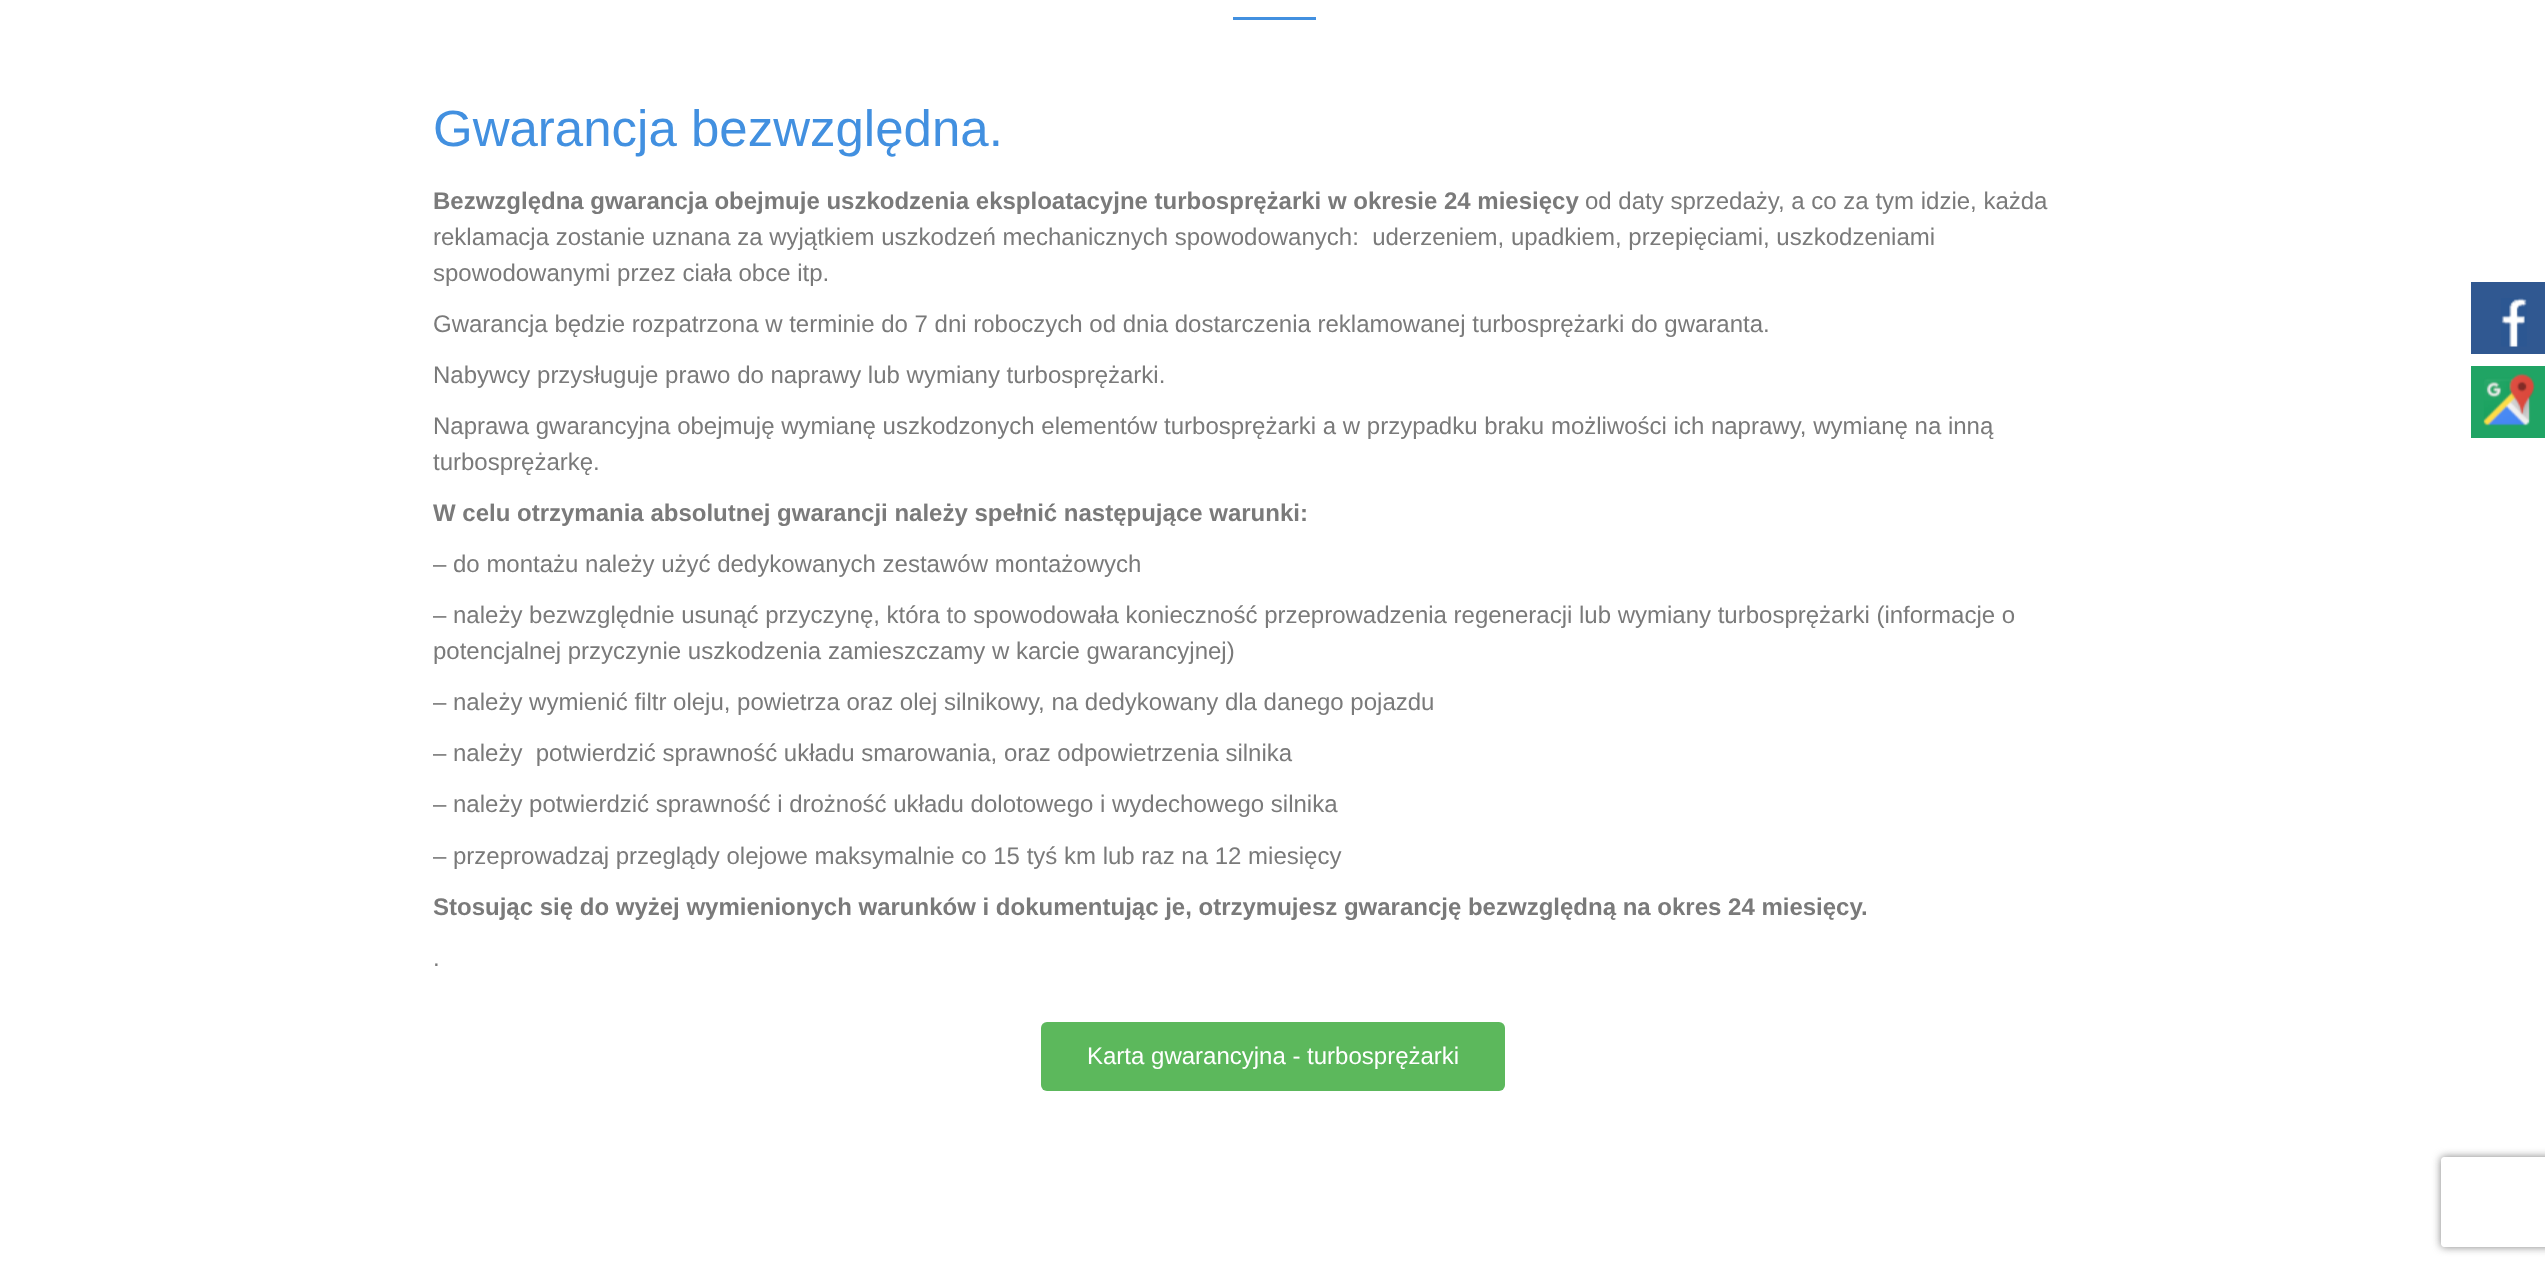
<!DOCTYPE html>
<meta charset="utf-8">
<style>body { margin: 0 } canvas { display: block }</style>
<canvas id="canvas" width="2545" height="1267"></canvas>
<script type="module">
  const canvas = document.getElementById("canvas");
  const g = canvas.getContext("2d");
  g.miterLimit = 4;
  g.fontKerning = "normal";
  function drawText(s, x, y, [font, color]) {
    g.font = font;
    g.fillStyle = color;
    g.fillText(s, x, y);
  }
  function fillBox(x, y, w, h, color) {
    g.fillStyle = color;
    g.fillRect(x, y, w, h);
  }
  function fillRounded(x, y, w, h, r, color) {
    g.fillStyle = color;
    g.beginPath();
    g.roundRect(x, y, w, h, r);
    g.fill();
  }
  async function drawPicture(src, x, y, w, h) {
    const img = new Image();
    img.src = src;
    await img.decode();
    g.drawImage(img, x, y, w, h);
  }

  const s1 = ["51px Liberation Sans", "#4290E0"];
  const s2 = ["bold 24px Liberation Sans", "#7A7A7A"];
  const s3 = ["24px Liberation Sans", "#7A7A7A"];
  const s4 = ["24px Liberation Sans", "#FFFFFF"];

  fillBox(0, 0, 2545, 1267, "#FFFFFF");
  fillBox(1233, 17, 83, 3, "#4290E0");
  drawText("Gwarancja bezwzględna.", 433, 146, s1);
  drawText("Bezwzględna gwarancja obejmuje uszkodzenia eksploatacyjne turbosprężarki w okresie 24 miesięcy", 433, 209, s2);
  drawText("od daty sprzedaży, a co za tym idzie, każda", 1585, 209, s3);
  drawText("reklamacja zostanie uznana za wyjątkiem uszkodzeń mechanicznych spowodowanych:  uderzeniem, upadkiem, przepięciami, uszkodzeniami", 433, 245, s3);
  drawText("spowodowanymi przez ciała obce itp.", 433, 281, s3);
  drawText("Gwarancja będzie rozpatrzona w terminie do 7 dni roboczych od dnia dostarczenia reklamowanej turbosprężarki do gwaranta.", 433, 332, s3);
  drawText("Nabywcy przysługuje prawo do naprawy lub wymiany turbosprężarki.", 433, 383, s3);
  drawText("Naprawa gwarancyjna obejmuję wymianę uszkodzonych elementów turbosprężarki a w przypadku braku możliwości ich naprawy, wymianę na inną", 433, 434, s3);
  drawText("turbosprężarkę.", 433, 470, s3);
  drawText("W celu otrzymania absolutnej gwarancji należy spełnić następujące warunki:", 433, 521, s2);
  drawText("– do montażu należy użyć dedykowanych zestawów montażowych", 433, 572, s3);
  drawText("– należy bezwzględnie usunąć przyczynę, która to spowodowała konieczność przeprowadzenia regeneracji lub wymiany turbosprężarki (informacje o", 433, 623, s3);
  drawText("potencjalnej przyczynie uszkodzenia zamieszczamy w karcie gwarancyjnej)", 433, 659, s3);
  drawText("– należy wymienić filtr oleju, powietrza oraz olej silnikowy, na dedykowany dla danego pojazdu", 433, 710, s3);
  drawText("– należy  potwierdzić sprawność układu smarowania, oraz odpowietrzenia silnika", 433, 761, s3);
  drawText("– należy potwierdzić sprawność i drożność układu dolotowego i wydechowego silnika", 433, 812, s3);
  drawText("– przeprowadzaj przeglądy olejowe maksymalnie co 15 tyś km lub raz na 12 miesięcy", 433, 864, s3);
  drawText("Stosując się do wyżej wymienionych warunków i dokumentując je, otrzymujesz gwarancję bezwzględną na okres 24 miesięcy.", 433, 915, s2);
  drawText(".", 433, 966, s3);
  fillRounded(1041, 1022, 464, 69, 6, "#5CB85C");
  drawText("Karta gwarancyjna - turbosprężarki", 1087, 1064, s4);
  fillBox(2471, 282, 74, 72, "#305891");
  await drawPicture("pic1.png", 2501, 298, 26, 49);
  fillBox(2471, 366, 74, 72, "#20A464");
  await drawPicture("pic2.png", 2483, 373, 52, 53);
  g.save();
  g.beginPath();
  g.moveTo(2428, 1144);
  g.lineTo(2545, 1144);
  g.lineTo(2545, 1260);
  g.lineTo(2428, 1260);
  g.closePath();
  g.moveTo(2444, 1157);
  g.lineTo(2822, 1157);
  g.bezierCurveTo(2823.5, 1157, 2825, 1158.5, 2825, 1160);
  g.lineTo(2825, 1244);
  g.bezierCurveTo(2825, 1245.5, 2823.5, 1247, 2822, 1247);
  g.lineTo(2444, 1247);
  g.bezierCurveTo(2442.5, 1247, 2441, 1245.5, 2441, 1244);
  g.lineTo(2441, 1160);
  g.bezierCurveTo(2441, 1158.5, 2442.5, 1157, 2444, 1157);
  g.closePath();
  g.clip("evenodd");
  g.fillStyle = "#808080";
  g.filter = "blur(4px)";
  g.beginPath();
  g.roundRect(2441, 1157, 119, 90, 3);
  g.fill();
  g.filter = "none";
  g.restore();
</script>
